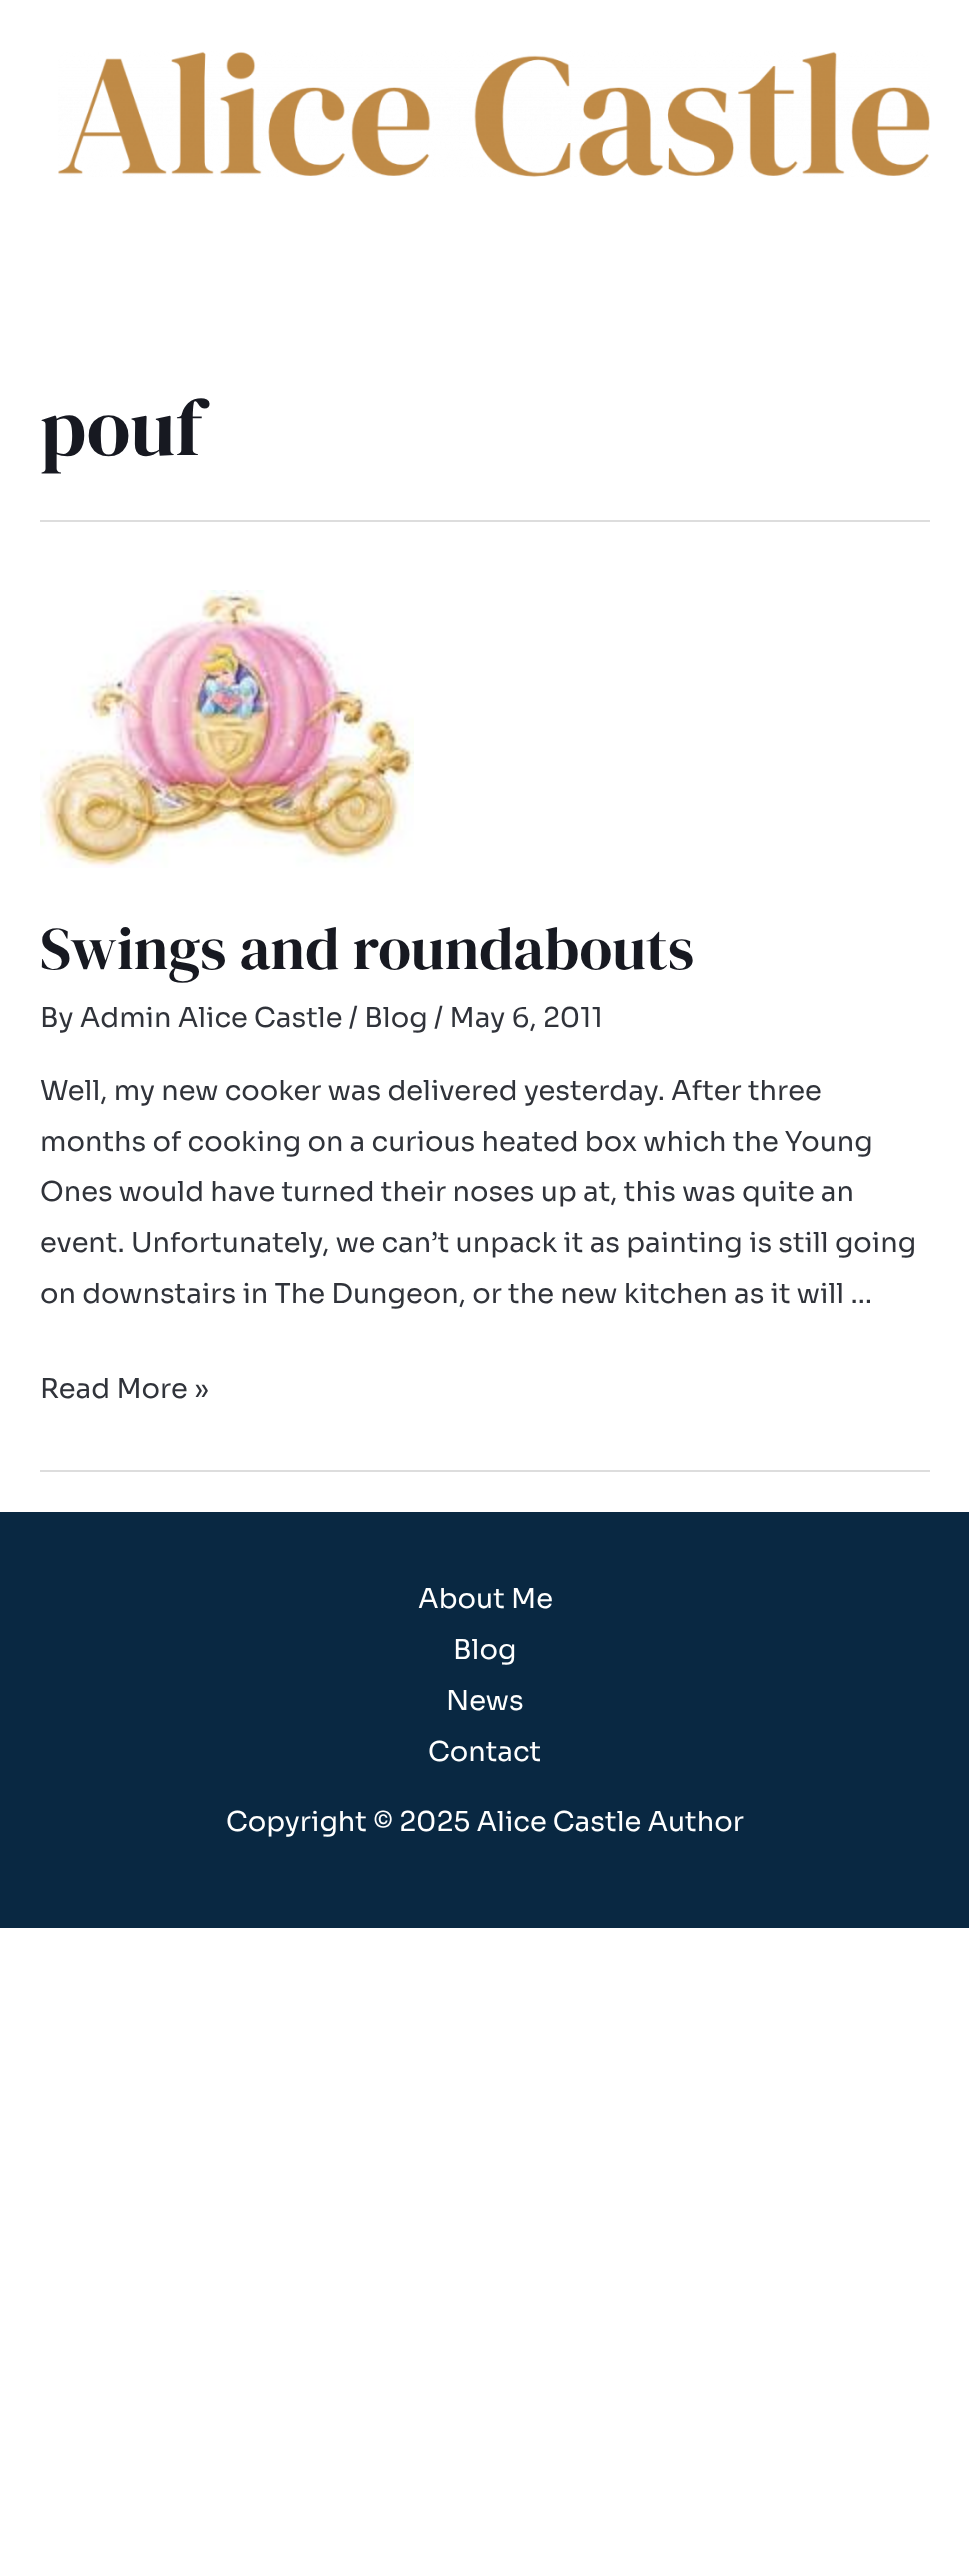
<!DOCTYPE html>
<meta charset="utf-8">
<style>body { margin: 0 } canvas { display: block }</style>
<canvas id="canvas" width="969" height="2565"></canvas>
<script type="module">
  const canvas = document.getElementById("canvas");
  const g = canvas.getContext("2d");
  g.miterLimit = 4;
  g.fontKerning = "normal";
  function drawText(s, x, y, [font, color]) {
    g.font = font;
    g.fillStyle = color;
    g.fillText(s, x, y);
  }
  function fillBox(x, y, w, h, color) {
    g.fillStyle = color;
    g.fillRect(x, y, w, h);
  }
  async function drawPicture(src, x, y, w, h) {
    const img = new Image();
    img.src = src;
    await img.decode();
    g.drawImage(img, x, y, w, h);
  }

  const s1 = ["80px DM Serif Display", "#171921"];
  const s2 = ["60px DM Serif Display", "#171921"];
  const s3 = ["27.35px Sora", "#30333A"];
  const s4 = ["27.35px Sora", "#FFFFFF"];

  fillBox(0, 0, 969, 2565, "#FFFFFF");
  await drawPicture("pic1.png", 58, 51, 872, 126);
  fillBox(40, 520, 890, 2, "#DDDDDD");
  drawText("pouf", 40, 455, s1);
  fillBox(40, 1470, 890, 2, "#DDDDDD");
  await drawPicture("pic2.png", 40, 590, 374, 278);
  drawText("Swings and roundabouts", 40, 969, s2);
  drawText("By Admin Alice Castle / Blog / May 6, 2011", 40, 1027, s3);
  drawText("Well, my new cooker was delivered yesterday. After three", 40, 1100, s3);
  drawText("months of cooking on a curious heated box which the Young", 40, 1151, s3);
  drawText("Ones would have turned their noses up at, this was quite an", 40, 1201, s3);
  drawText("event. Unfortunately, we can’t unpack it as painting is still going", 40, 1252, s3);
  drawText("on downstairs in The Dungeon, or the new kitchen as it will …", 40, 1303, s3);
  drawText("Read More »", 40, 1398, s3);
  fillBox(0, 1512, 969, 416, "#092842");
  drawText("About Me", 418, 1608, s4);
  drawText("Blog", 453, 1659, s4);
  drawText("News", 446, 1710, s4);
  drawText("Contact", 428, 1761, s4);
  drawText("Copyright © 2025 Alice Castle Author", 226, 1831, s4);
</script>
